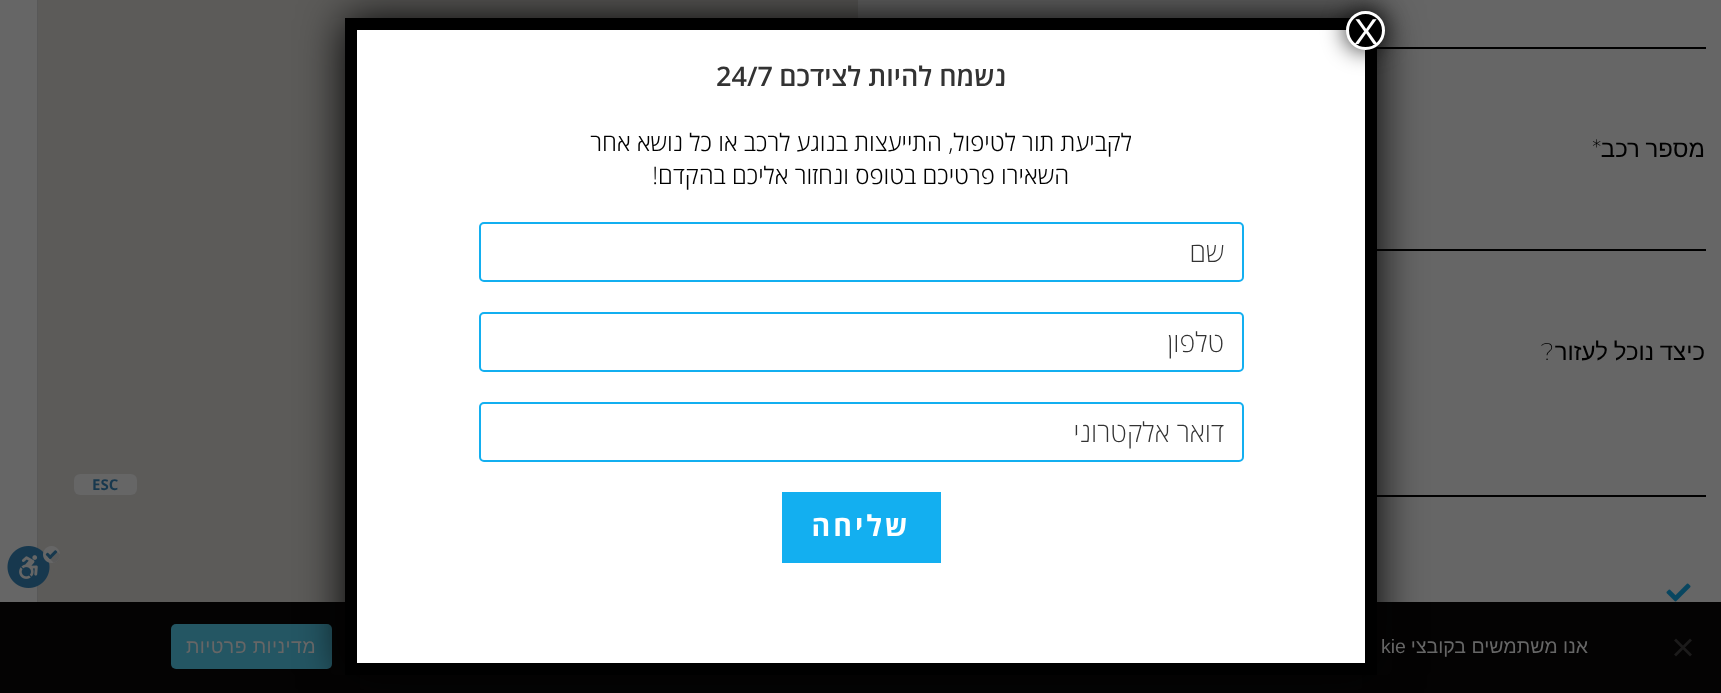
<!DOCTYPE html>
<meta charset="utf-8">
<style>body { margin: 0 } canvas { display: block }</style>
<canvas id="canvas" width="1721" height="693"></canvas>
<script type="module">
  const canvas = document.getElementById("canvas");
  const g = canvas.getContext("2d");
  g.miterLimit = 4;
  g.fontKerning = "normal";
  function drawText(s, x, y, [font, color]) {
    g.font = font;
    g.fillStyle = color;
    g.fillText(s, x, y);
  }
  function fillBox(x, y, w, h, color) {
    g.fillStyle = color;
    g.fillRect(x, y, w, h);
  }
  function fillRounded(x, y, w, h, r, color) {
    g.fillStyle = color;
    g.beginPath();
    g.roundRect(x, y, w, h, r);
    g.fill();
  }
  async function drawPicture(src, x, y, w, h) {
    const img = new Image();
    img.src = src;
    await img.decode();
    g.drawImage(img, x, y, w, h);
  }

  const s1 = ["24px Liberation Sans", "#000000"];
  const s2 = ["200 24px Montserrat", "#000000"];
  const s3 = ["36px Liberation Sans", "#FFFFFF"];
  const s4 = ["600 27px Open Sans", "#333333"];
  const s5 = ["300 24px Open Sans", "#000000"];
  const s6 = ["300 27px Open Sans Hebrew", "#333333"];
  const s7 = ["bold 28.5px Open Sans Hebrew", "#FFFFFF"];
  const s8 = ["bold 15px Open Sans Hebrew", "#17384E"];
  const s9 = ["19.5px Liberation Sans", "#666666"];

  fillBox(0, 0, 1721, 693, "#666666");
  fillBox(1377, 47, 329, 2, "#000000");
  g.wordSpacing = "-1px";
  g.direction = "rtl";
  drawText("מספר רכב", 1705, 157, s1);
  g.wordSpacing = "0px";
  drawText("*", 1601, 157, s2);
  fillBox(1377, 249, 329, 2, "#000000");
  g.wordSpacing = "-1px";
  drawText("כיצד נוכל לעזור", 1705, 360, s1);
  g.wordSpacing = "0px";
  drawText("?", 1554, 360, s2);
  fillBox(1377, 495, 329, 2, "#000000");
  await drawPicture("pic1.png", 1666, 583, 25, 19);
  await drawPicture("pic2.png", 37, 0, 821, 602);
  fillBox(0, 602, 1721, 91, "#040303");
  fillRounded(171, 624, 161, 45, 5, "#245663");
  g.fillStyle = "#020202";
  g.filter = "blur(22.5px)";
  g.beginPath();
  g.roundRect(345, 18, 1032, 657, 5);
  g.fill();
  g.filter = "none";
  fillBox(357, 30, 1008, 633, "#FFFFFF");
  g.beginPath();
  g.moveTo(351, 24);
  g.lineTo(1371, 24);
  g.lineTo(1371, 669);
  g.lineTo(351, 669);
  g.closePath();
  g.strokeStyle = "#000000";
  g.lineWidth = 12;
  g.stroke();
  g.fillStyle = "rgba(2, 2, 2, 0.75)";
  g.filter = "blur(11px)";
  g.beginPath();
  g.roundRect(1344, 9, 42, 42, 21);
  g.fill();
  g.filter = "none";
  g.fillStyle = "#000000";
  g.beginPath();
  g.arc(1365.5, 30.5, 18, 0, Math.PI * 2);
  g.fill();
  g.strokeStyle = "#FFFFFF";
  g.lineWidth = 3;
  g.stroke();
  g.direction = "ltr";
  drawText("X", 1354, 44, s3);
  g.direction = "rtl";
  drawText("נשמח להיות לצידכם", 1006, 86, s4);
  g.direction = "ltr";
  drawText("24/7", 716, 86, s4);
  g.direction = "rtl";
  drawText("לקביעת תור לטיפול, התייעצות בנוגע לרכב או כל נושא אחר", 1132, 151, s5);
  drawText("השאירו פרטיכם בטופס ונחזור אליכם בהקדם!", 1069, 184, s5);
  g.beginPath();
  g.roundRect(480, 223, 763, 58, 4);
  g.strokeStyle = "#13AFF0";
  g.lineWidth = 2;
  g.stroke();
  drawText("שם", 1224, 262, s6);
  g.beginPath();
  g.roundRect(480, 313, 763, 58, 4);
  g.stroke();
  drawText("טלפון", 1224, 352, s6);
  g.beginPath();
  g.roundRect(480, 403, 763, 58, 4);
  g.stroke();
  drawText("דואר אלקטרוני", 1224, 442, s6);
  fillBox(782, 492, 159, 71, "#13AFF0");
  g.letterSpacing = "3px";
  drawText("שליחה", 910, 536, s7);
  fillRounded(74, 474, 63, 21, 6, "#666666");
  g.letterSpacing = "0px";
  g.direction = "ltr";
  drawText("ESC", 92, 490, s8);
  await drawPicture("pic3.png", 7, 546, 53, 42);
  g.fillStyle = "#1C1B1B";
  g.beginPath();
  g.moveTo(1690, 638.5);
  g.lineTo(1692, 640.5);
  g.lineTo(1676, 656.5);
  g.lineTo(1674, 654.5);
  g.closePath();
  g.fill();
  g.beginPath();
  g.moveTo(1674, 640.5);
  g.lineTo(1676, 638.5);
  g.lineTo(1692, 654.5);
  g.lineTo(1690, 656.5);
  g.closePath();
  g.fill();
  g.direction = "rtl";
  drawText("אנו משתמשים בקובצי", 1588, 653, s9);
  g.direction = "ltr";
  drawText("kie", 1381, 653, s9);
  g.letterSpacing = "0.4px";
  g.direction = "rtl";
  drawText("מדיניות פרטיות", 316, 653, s9);
</script>
